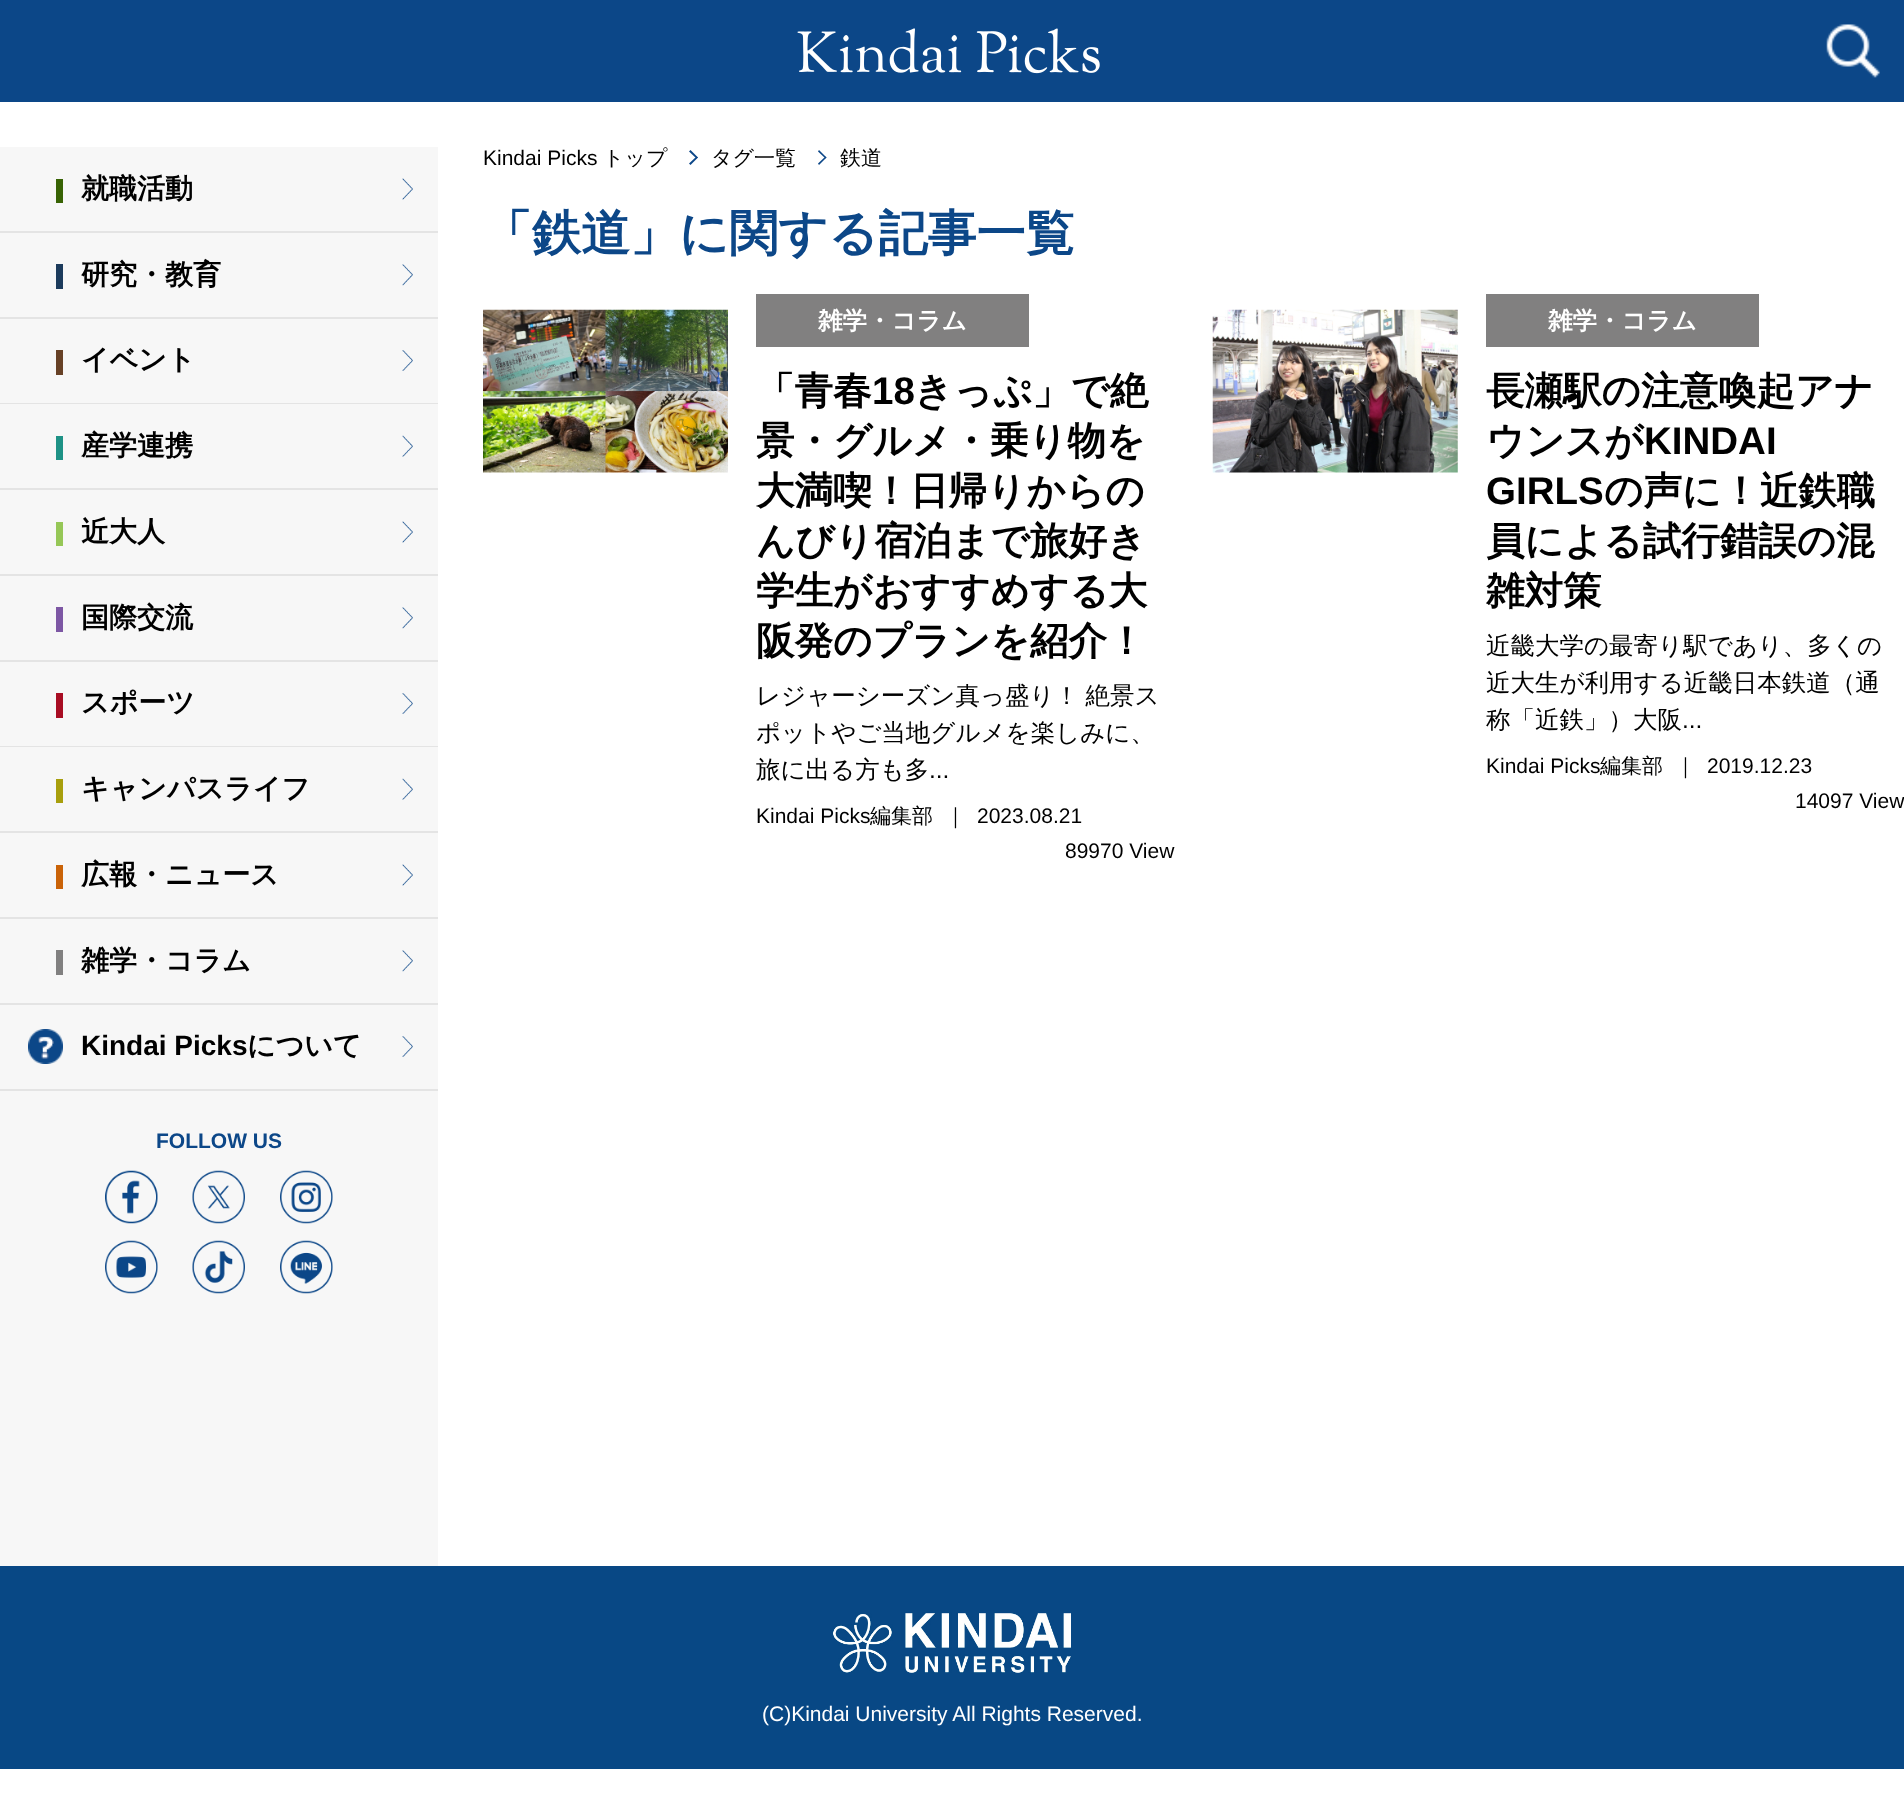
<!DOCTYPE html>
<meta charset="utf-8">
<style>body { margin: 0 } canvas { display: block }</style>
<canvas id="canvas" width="1904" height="1808"></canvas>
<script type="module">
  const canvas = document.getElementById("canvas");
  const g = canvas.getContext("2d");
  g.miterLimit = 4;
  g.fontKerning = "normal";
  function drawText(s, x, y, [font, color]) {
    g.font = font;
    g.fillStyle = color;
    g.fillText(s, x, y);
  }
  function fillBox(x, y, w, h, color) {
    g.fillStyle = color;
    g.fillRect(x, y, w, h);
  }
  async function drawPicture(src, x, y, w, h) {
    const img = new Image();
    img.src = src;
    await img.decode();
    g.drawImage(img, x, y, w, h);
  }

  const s1 = ["bold 28px WenQuanYi Zen Hei", "#000000"];
  const s2 = ["bold 28px Liberation Sans", "#000000"];
  const s3 = ["bold 21px Liberation Sans", "#0C4788"];
  const s4 = ["21px Liberation Sans", "#000000"];
  const s5 = ["500 21px WenQuanYi Zen Hei", "#000000"];
  const s6 = ["bold 49px WenQuanYi Zen Hei", "#0C4788"];
  const s7 = ["bold 24.5px WenQuanYi Zen Hei", "#FFFFFF"];
  const s8 = ["bold 38.5px WenQuanYi Zen Hei", "#000000"];
  const s9 = ["bold 38.5px Liberation Sans", "#000000"];
  const s10 = ["500 24.5px WenQuanYi Zen Hei", "#000000"];
  const s11 = ["24.5px Liberation Sans", "#000000"];
  const s12 = ["21px Liberation Sans", "#FFFFFF"];

  fillBox(0, 0, 1904, 1808, "#FFFFFF");
  fillBox(0, 0, 1904, 102, "#0C4788");
  await drawPicture("pic1.png", 797, 28, 303, 46);
  await drawPicture("pic2.png", 1826, 24, 54, 54);
  fillBox(0, 147, 438, 1419, "#F7F7F7");
  fillBox(0, 231, 438, 2, "#E4E4E4");
  await drawPicture("pic3.png", 402, 178, 11, 22);
  fillBox(56, 179, 7, 24, "#386304");
  drawText("就職活動", 81, 198, s1);
  fillBox(0, 317, 438, 2, "#E4E4E4");
  await drawPicture("pic4.png", 402, 264, 11, 22);
  fillBox(56, 264, 7, 25, "#1C3B5C");
  drawText("研究・教育", 81, 284, s1);
  fillBox(0, 403, 438, 1, "#E4E4E4");
  await drawPicture("pic5.png", 402, 350, 11, 21);
  fillBox(56, 350, 7, 25, "#674126");
  drawText("イベント", 81, 369, s1);
  fillBox(0, 488, 438, 2, "#E4E4E4");
  await drawPicture("pic6.png", 402, 435, 11, 22);
  fillBox(56, 436, 7, 24, "#1E9286");
  drawText("産学連携", 81, 455, s1);
  fillBox(0, 574, 438, 2, "#E4E4E4");
  await drawPicture("pic3.png", 402, 521, 11, 22);
  fillBox(56, 522, 7, 24, "#96C757");
  drawText("近大人", 81, 541, s1);
  fillBox(0, 660, 438, 2, "#E4E4E4");
  await drawPicture("pic4.png", 402, 607, 11, 22);
  fillBox(56, 607, 7, 25, "#7D57A4");
  drawText("国際交流", 81, 627, s1);
  fillBox(0, 746, 438, 1, "#E4E4E4");
  await drawPicture("pic5.png", 402, 693, 11, 21);
  fillBox(56, 693, 7, 25, "#A80D23");
  drawText("スポーツ", 81, 712, s1);
  fillBox(0, 831, 438, 2, "#E4E4E4");
  await drawPicture("pic6.png", 402, 778, 11, 22);
  fillBox(56, 779, 7, 24, "#A89F0D");
  drawText("キャンパスライフ", 81, 798, s1);
  fillBox(0, 917, 438, 2, "#E4E4E4");
  await drawPicture("pic3.png", 402, 864, 11, 22);
  fillBox(56, 865, 7, 24, "#CA6308");
  drawText("広報・ニュース", 81, 884, s1);
  fillBox(0, 1003, 438, 2, "#E4E4E4");
  await drawPicture("pic4.png", 402, 950, 11, 22);
  fillBox(56, 950, 7, 25, "#818080");
  drawText("雑学・コラム", 81, 970, s1);
  await drawPicture("pic7.png", 28, 1029, 35, 35);
  fillBox(0, 1089, 438, 2, "#E4E4E4");
  await drawPicture("pic5.png", 402, 1036, 11, 21);
  drawText("Kindai Picks", 81, 1055, s2);
  drawText("について", 247, 1055, s1);
  drawText("FOLLOW US", 156, 1148, s3);
  await drawPicture("pic8.png", 105, 1170, 53, 54);
  await drawPicture("pic9.png", 192, 1170, 53, 54);
  await drawPicture("pic10.png", 280, 1170, 53, 54);
  await drawPicture("pic11.png", 105, 1240, 53, 54);
  await drawPicture("pic12.png", 192, 1240, 53, 54);
  await drawPicture("pic13.png", 280, 1240, 53, 54);
  drawText("Kindai Picks", 483, 165, s4);
  drawText("トップ", 603, 165, s5);
  g.fillStyle = "#0C4788";
  g.beginPath();
  g.moveTo(689, 151.5);
  g.lineTo(690.5, 150);
  g.lineTo(698, 157.5);
  g.lineTo(696.5, 158.5);
  g.closePath();
  g.fill();
  g.beginPath();
  g.moveTo(689, 163.5);
  g.lineTo(696.5, 156.5);
  g.lineTo(698, 157.5);
  g.lineTo(690.5, 165);
  g.closePath();
  g.fill();
  drawText("タグ一覧", 711, 165, s5);
  g.fillStyle = "#0C4788";
  g.beginPath();
  g.moveTo(818, 151.5);
  g.lineTo(819, 150);
  g.lineTo(826.5, 157.5);
  g.lineTo(825.5, 158.5);
  g.closePath();
  g.fill();
  g.beginPath();
  g.moveTo(818, 163.5);
  g.lineTo(825.5, 156.5);
  g.lineTo(826.5, 157.5);
  g.lineTo(819, 165);
  g.closePath();
  g.fill();
  drawText("鉄道", 840, 165, s5);
  drawText("「鉄道」に関する記事一覧", 483, 250, s6);
  await drawPicture("pic14.png", 483, 309, 245, 164);
  fillBox(756, 294, 273, 53, "#818080");
  drawText("雑学・コラム", 818, 329, s7);
  drawText("「青春", 756, 404, s8);
  drawText("18", 872, 404, s9);
  drawText("きっぷ」で絶", 914, 404, s8);
  drawText("景・グルメ・乗り物を", 756, 454, s8);
  drawText("大満喫！日帰りからの", 756, 504, s8);
  drawText("んびり宿泊まで旅好き", 756, 554, s8);
  drawText("学生がおすすめする大", 756, 604, s8);
  drawText("阪発のプランを紹介！", 756, 654, s8);
  g.wordSpacing = "-1px";
  drawText("レジャーシーズン真っ盛り！ 絶景ス", 756, 704, s10);
  g.wordSpacing = "0px";
  drawText("ポットやご当地グルメを楽しみに、", 756, 741, s10);
  drawText("旅に出る方も多", 756, 778, s10);
  drawText("...", 929, 778, s11);
  drawText("Kindai Picks", 756, 823, s4);
  drawText("編集部", 870, 823, s5);
  drawText("｜", 945, 823, s5);
  drawText("2023.08.21", 977, 823, s4);
  drawText("89970 View", 1065, 858, s4);
  await drawPicture("pic15.png", 1212, 309, 246, 164);
  fillBox(1486, 294, 273, 53, "#818080");
  drawText("雑学・コラム", 1548, 329, s7);
  drawText("長瀬駅の注意喚起アナ", 1486, 404, s8);
  drawText("ウンスが", 1486, 454, s8);
  drawText("KINDAI", 1644, 454, s9);
  drawText("GIRLS", 1486, 504, s9);
  drawText("の声に！近鉄職", 1604, 504, s8);
  drawText("員による試行錯誤の混", 1486, 554, s8);
  drawText("雑対策", 1486, 604, s8);
  drawText("近畿大学の最寄り駅であり、多くの", 1486, 654, s10);
  drawText("近大生が利用する近畿日本鉄道（通", 1486, 691, s10);
  drawText("称「近鉄」）大阪", 1486, 728, s10);
  drawText("...", 1682, 728, s11);
  drawText("Kindai Picks", 1486, 773, s4);
  drawText("編集部", 1600, 773, s5);
  drawText("｜", 1675, 773, s5);
  drawText("2019.12.23", 1707, 773, s4);
  drawText("14097 View", 1795, 808, s4);
  fillBox(0, 1566, 1904, 203, "#084885");
  await drawPicture("pic16.png", 833, 1612, 238, 61);
  drawText("(C)Kindai University All Rights Reserved.", 762, 1721, s12);
</script>
